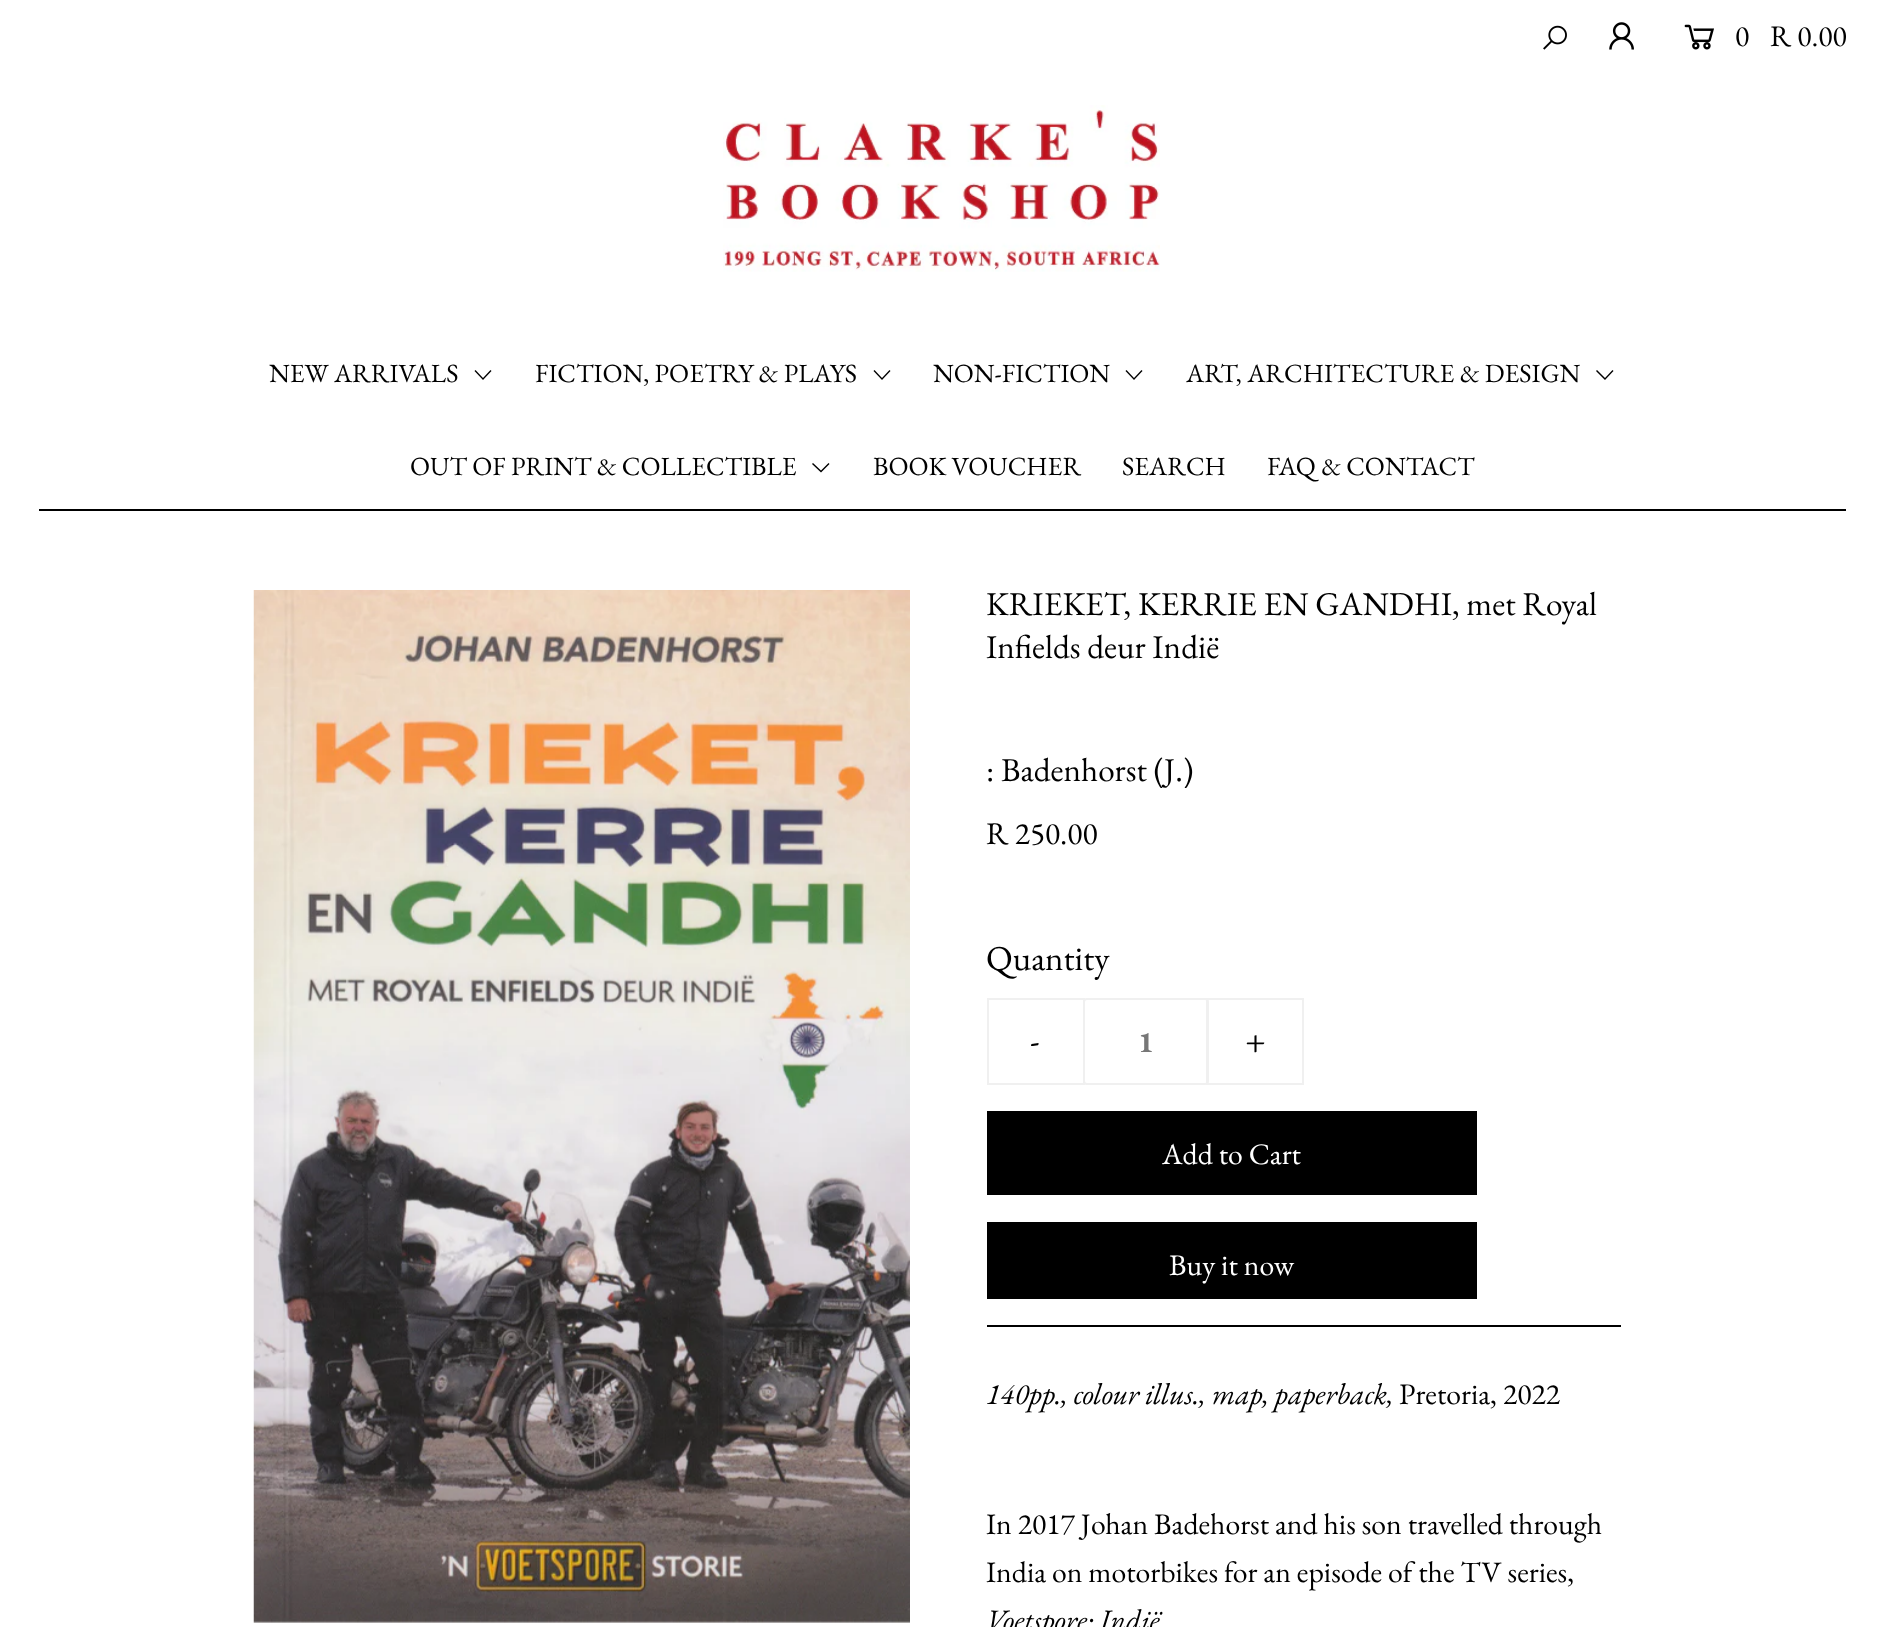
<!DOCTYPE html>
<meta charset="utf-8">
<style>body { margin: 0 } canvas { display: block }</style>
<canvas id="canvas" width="1884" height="1627"></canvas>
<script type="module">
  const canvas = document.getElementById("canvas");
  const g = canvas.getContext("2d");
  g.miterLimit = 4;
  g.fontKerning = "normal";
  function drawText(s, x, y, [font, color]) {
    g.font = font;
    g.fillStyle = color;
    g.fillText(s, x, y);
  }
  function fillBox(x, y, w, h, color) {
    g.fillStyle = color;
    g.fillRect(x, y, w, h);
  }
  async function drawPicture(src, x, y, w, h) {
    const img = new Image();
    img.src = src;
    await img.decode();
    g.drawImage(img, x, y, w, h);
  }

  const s1 = ["29.75px EB Garamond", "#000000"];
  const s2 = ["26.25px EB Garamond", "#000000"];
  const s3 = ["33.25px EB Garamond", "#000000"];
  const s4 = ["31.5px EB Garamond", "#000000"];
  const s5 = ["35px EB Garamond", "#000000"];
  const s6 = ["bold 29.75px EB Garamond", "#777777"];
  const s7 = ["29.75px EB Garamond", "#FFFFFF"];
  const s8 = ["italic 29.75px EB Garamond", "#000000"];

  fillBox(0, 0, 1884, 1627, "#FFFFFF");
  await drawPicture("pic1.png", 1543, 25, 24, 25);
  await drawPicture("pic2.png", 1609, 22, 25, 28);
  await drawPicture("pic3.png", 1684, 24, 30, 26);
  drawText("0", 1735, 46, s1);
  drawText("R 0.00", 1770, 46, s1);
  fillBox(39, 509, 1807, 2, "#000000");
  await drawPicture("pic4.png", 723, 105, 437, 167);
  drawText("NEW ARRIVALS", 269, 382, s2);
  g.beginPath();
  g.moveTo(475.5, 370);
  g.lineTo(483, 378);
  g.lineTo(490.5, 370);
  g.lineTo(491.5, 371);
  g.lineTo(483, 380);
  g.lineTo(474.5, 371);
  g.closePath();
  g.fill();
  drawText("FICTION, POETRY & PLAYS", 535, 382, s2);
  g.beginPath();
  g.moveTo(874.5, 370);
  g.lineTo(882, 378);
  g.lineTo(889.5, 370);
  g.lineTo(890.5, 371);
  g.lineTo(882, 380);
  g.lineTo(873.5, 371);
  g.closePath();
  g.fill();
  drawText("NON-FICTION", 933, 382, s2);
  g.beginPath();
  g.moveTo(1126.5, 370);
  g.lineTo(1134, 378);
  g.lineTo(1141.5, 370);
  g.lineTo(1142.5, 371);
  g.lineTo(1134, 380);
  g.lineTo(1125.5, 371);
  g.closePath();
  g.fill();
  drawText("ART, ARCHITECTURE & DESIGN", 1186, 382, s2);
  g.beginPath();
  g.moveTo(1597, 370);
  g.lineTo(1605, 378);
  g.lineTo(1612.5, 370);
  g.lineTo(1613.5, 371);
  g.lineTo(1605, 380);
  g.lineTo(1596, 371);
  g.closePath();
  g.fill();
  drawText("OUT OF PRINT & COLLECTIBLE", 410, 475, s2);
  g.beginPath();
  g.moveTo(813, 463);
  g.lineTo(821, 470.5);
  g.lineTo(828.5, 463);
  g.lineTo(829.5, 464);
  g.lineTo(821, 472.5);
  g.lineTo(812, 464);
  g.closePath();
  g.fill();
  drawText("BOOK VOUCHER", 873, 475, s2);
  drawText("SEARCH", 1122, 475, s2);
  drawText("FAQ & CONTACT", 1267, 475, s2);
  await drawPicture("pic5.png", 253, 590, 657, 1033);
  drawText("KRIEKET, KERRIE EN GANDHI, met Royal", 986, 615, s3);
  drawText("Infields deur Indië", 986, 658, s3);
  fillBox(987, 1325, 634, 2, "#000000");
  drawText(": Badenhorst (J.)", 986, 781, s3);
  drawText("R 250.00", 986, 844, s4);
  drawText("Quantity", 986, 970, s5);
  g.strokeStyle = "#F0F0F0";
  g.lineWidth = 2;
  g.strokeRect(988, 999, 96, 85);
  drawText("-", 1030, 1052, s5);
  g.beginPath();
  g.roundRect(1084, 999, 124, 85, 3);
  g.stroke();
  drawText("1", 1138, 1052, s6);
  g.strokeRect(1207, 999, 96, 85);
  drawText("+", 1245, 1052, s5);
  fillBox(987, 1111, 490, 84, "#000000");
  drawText("Add to Cart", 1162, 1164, s7);
  fillBox(987, 1222, 490, 77, "#000000");
  drawText("Buy it now", 1169, 1275, s7);
  drawText("140pp., colour illus., map, paperback,", 986, 1404, s8);
  drawText("Pretoria, 2022", 1399, 1404, s1);
  drawText("In 2017 Johan Badehorst and his son travelled through", 986, 1534, s1);
  drawText("India on motorbikes for an episode of the TV series,", 986, 1582, s1);
  drawText("Voetspore: Indië.", 986, 1630, s8);
</script>
